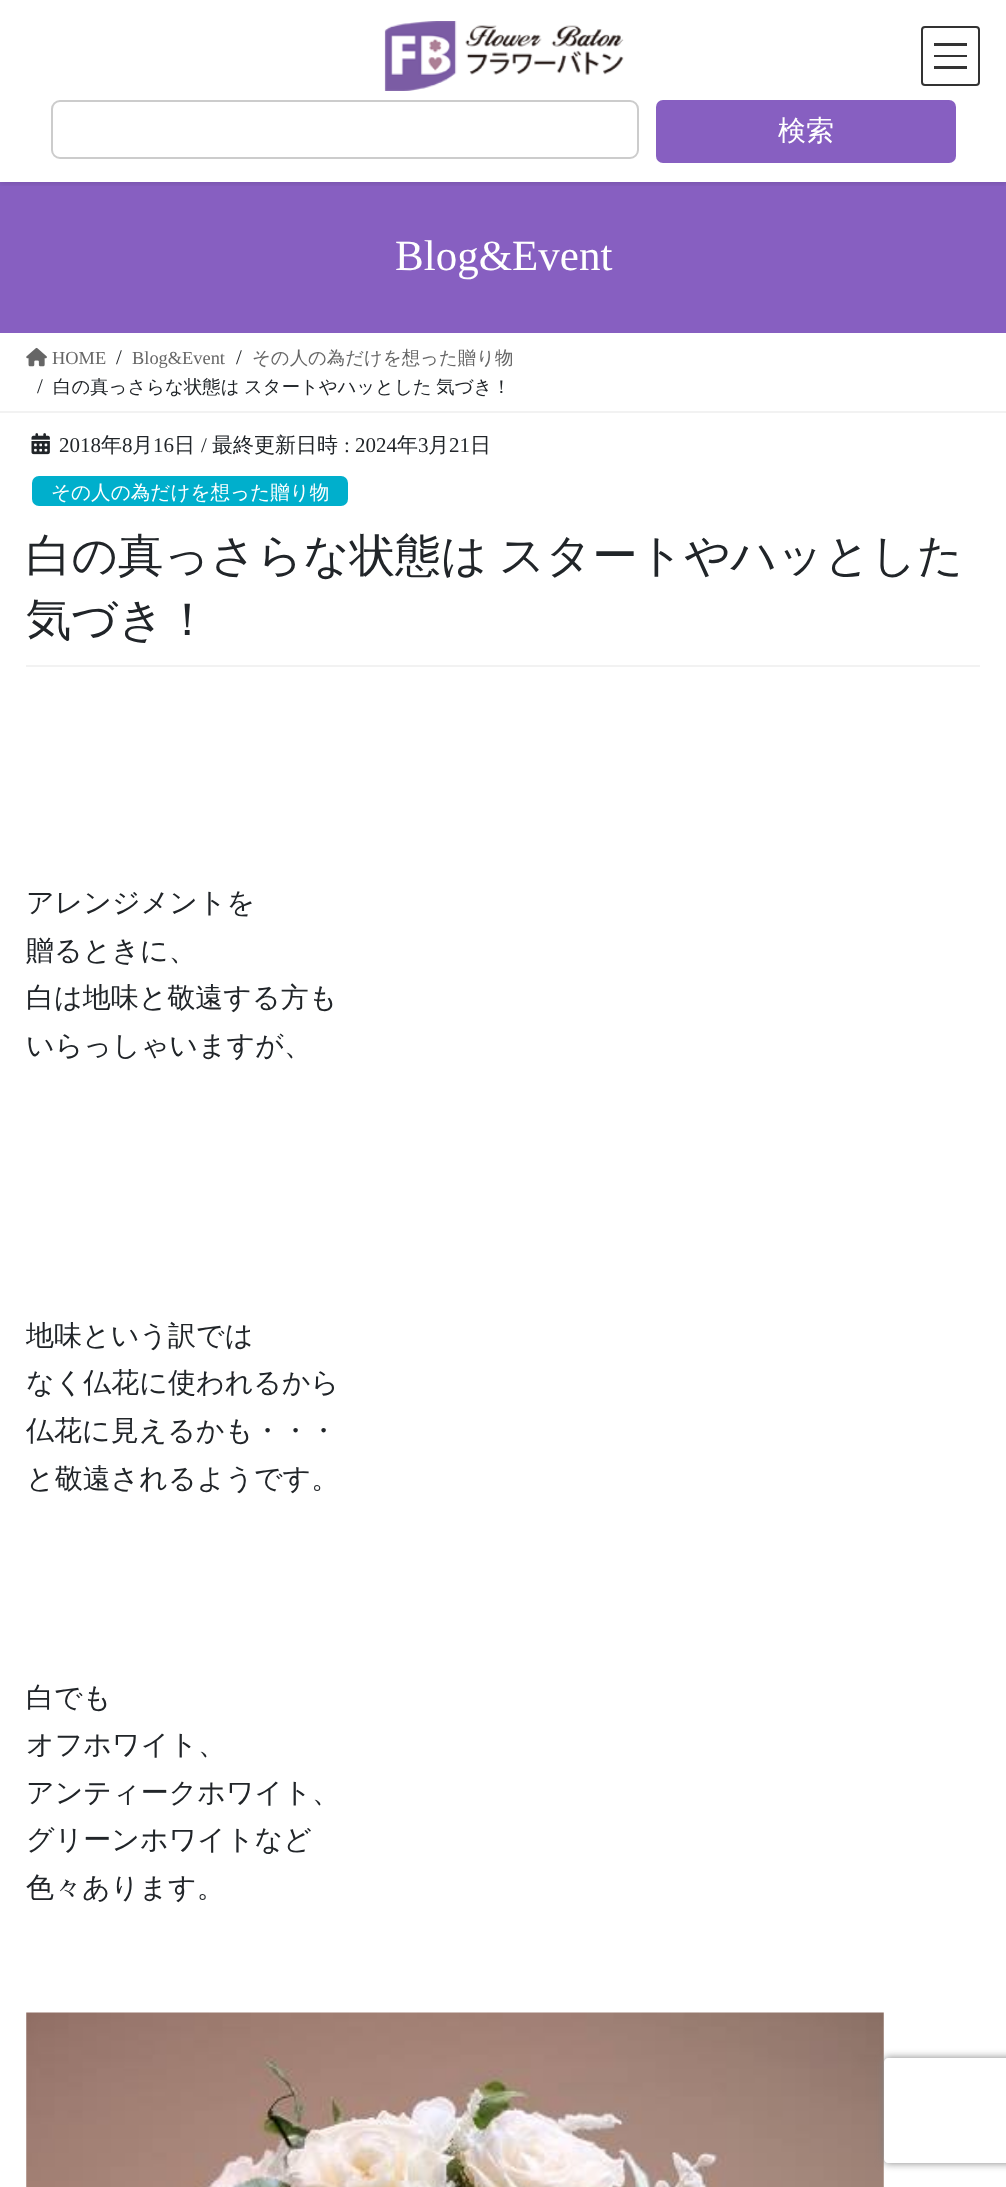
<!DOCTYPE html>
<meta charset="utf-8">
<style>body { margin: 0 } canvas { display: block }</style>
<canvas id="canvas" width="1006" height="2187"></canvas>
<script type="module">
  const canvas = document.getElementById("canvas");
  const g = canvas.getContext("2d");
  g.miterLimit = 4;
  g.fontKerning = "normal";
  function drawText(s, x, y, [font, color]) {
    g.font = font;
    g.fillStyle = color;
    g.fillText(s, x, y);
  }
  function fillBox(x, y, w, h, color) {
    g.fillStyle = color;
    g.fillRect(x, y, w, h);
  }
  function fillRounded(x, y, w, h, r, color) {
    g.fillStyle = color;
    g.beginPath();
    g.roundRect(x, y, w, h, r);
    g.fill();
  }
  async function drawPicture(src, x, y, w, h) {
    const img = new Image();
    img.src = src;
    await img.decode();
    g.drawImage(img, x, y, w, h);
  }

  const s1 = ["500 28px WenQuanYi Zen Hei", "#FFFFFF"];
  const s2 = ["43px Liberation Serif", "#FFFFFF"];
  const s3 = ["18.4px Liberation Serif", "#666666"];
  const s4 = ["21px Liberation Serif", "#212529"];
  const s5 = ["500 18.4px WenQuanYi Zen Hei", "#666666"];
  const s6 = ["500 18.4px WenQuanYi Zen Hei", "#212529"];
  const s7 = ["500 21px WenQuanYi Zen Hei", "#212529"];
  const s8 = ["500 19.6px WenQuanYi Zen Hei", "#FFFFFF"];
  const s9 = ["500 45.5px WenQuanYi Zen Hei", "#212529"];
  const s10 = ["500 28px WenQuanYi Zen Hei", "#212529"];

  fillBox(0, 0, 1006, 2187, "#FFFFFF");
  fillBox(0, 182, 1006, 151, "#875FC1");
  g.save();
  g.beginPath();
  g.rect(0, 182, 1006, 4);
  g.clip();
  g.fillStyle = "rgba(0, 0, 0, 0.1)";
  g.filter = "blur(2.5px)";
  g.beginPath();
  g.rect(0, 2, 1006, 182);
  g.fill();
  g.filter = "none";
  g.restore();
  fillBox(934, 43, 33, 3, "#333333");
  fillBox(934, 55, 33, 2, "#333333");
  fillBox(934, 66, 33, 3, "#333333");
  g.beginPath();
  g.roundRect(922, 27, 57, 58, 3);
  g.strokeStyle = "#333333";
  g.lineWidth = 2;
  g.stroke();
  await drawPicture("pic1.png", 384, 21, 240, 70);
  g.beginPath();
  g.roundRect(52, 101, 586, 57, 8);
  g.strokeStyle = "#CCCCCC";
  g.stroke();
  fillRounded(656, 100, 300, 63, 7, "#875FC1");
  drawText("検索", 778, 140, s1);
  drawText("Blog&Event", 395, 270, s2);
  fillBox(0, 411, 1006, 2, "#F2F2F2");
  await drawPicture("pic2.png", 26, 347, 21, 20);
  drawText("HOME", 52, 364, s3);
  drawText("/", 116, 364, s4);
  drawText("Blog&Event", 132, 364, s3);
  drawText("/", 236, 364, s4);
  drawText("その人の為だけを想った贈り物", 252, 364, s5);
  drawText("/", 37, 393, s4);
  g.wordSpacing = "-1px";
  drawText("白の真っさらな状態は スタートやハッとした 気づき！", 53, 393, s6);
  fillBox(26, 665, 954, 2, "#F2F2F2");
  await drawPicture("pic3.png", 31, 433, 19, 22);
  g.wordSpacing = "0px";
  drawText("2018", 59, 452, s4);
  drawText("年", 101, 452, s7);
  drawText("8", 122, 452, s4);
  drawText("月", 132, 452, s7);
  drawText("16", 153, 452, s4);
  drawText("日", 174, 452, s7);
  drawText("/", 201, 452, s4);
  drawText("最終更新日時", 212, 452, s7);
  drawText(": 2024", 344, 452, s4);
  drawText("年", 397, 452, s7);
  drawText("3", 418, 452, s4);
  drawText("月", 428, 452, s7);
  drawText("21", 449, 452, s4);
  drawText("日", 470, 452, s7);
  fillRounded(32, 476, 316, 30, 7, "#00AFCC");
  drawText("その人の為だけを想った贈り物", 51, 499, s8);
  g.wordSpacing = "-2px";
  drawText("白の真っさらな状態は スタートやハッとした", 26, 571, s9);
  g.wordSpacing = "0px";
  drawText("気づき！", 26, 635, s9);
  drawText("アレンジメントを", 26, 912, s10);
  drawText("贈るときに、", 26, 960, s10);
  drawText("白は地味と敬遠する方も", 26, 1007, s10);
  drawText("いらっしゃいますが、", 26, 1055, s10);
  drawText("地味という訳では", 26, 1345, s10);
  drawText("なく仏花に使われるから", 26, 1392, s10);
  drawText("仏花に見えるかも・・・", 26, 1440, s10);
  drawText("と敬遠されるようです。", 26, 1488, s10);
  drawText("白でも", 26, 1707, s10);
  drawText("オフホワイト、", 26, 1754, s10);
  drawText("アンティークホワイト、", 26, 1802, s10);
  drawText("グリーンホワイトなど", 26, 1849, s10);
  drawText("色々あります。", 26, 1897, s10);
  await drawPicture("pic4.png", 26, 2012, 858, 175);
  g.save();
  g.beginPath();
  g.moveTo(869, 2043);
  g.lineTo(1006, 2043);
  g.lineTo(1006, 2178);
  g.lineTo(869, 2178);
  g.closePath();
  g.moveTo(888, 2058);
  g.lineTo(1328, 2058);
  g.bezierCurveTo(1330, 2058, 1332, 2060, 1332, 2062);
  g.lineTo(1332, 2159);
  g.bezierCurveTo(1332, 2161, 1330, 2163, 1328, 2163);
  g.lineTo(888, 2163);
  g.bezierCurveTo(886, 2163, 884, 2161, 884, 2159);
  g.lineTo(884, 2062);
  g.bezierCurveTo(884, 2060, 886, 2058, 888, 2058);
  g.closePath();
  g.clip("evenodd");
  g.fillStyle = "#808080";
  g.filter = "blur(4.5px)";
  g.beginPath();
  g.roundRect(884, 2058, 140, 105, 4);
  g.fill();
  g.filter = "none";
  g.restore();
</script>
